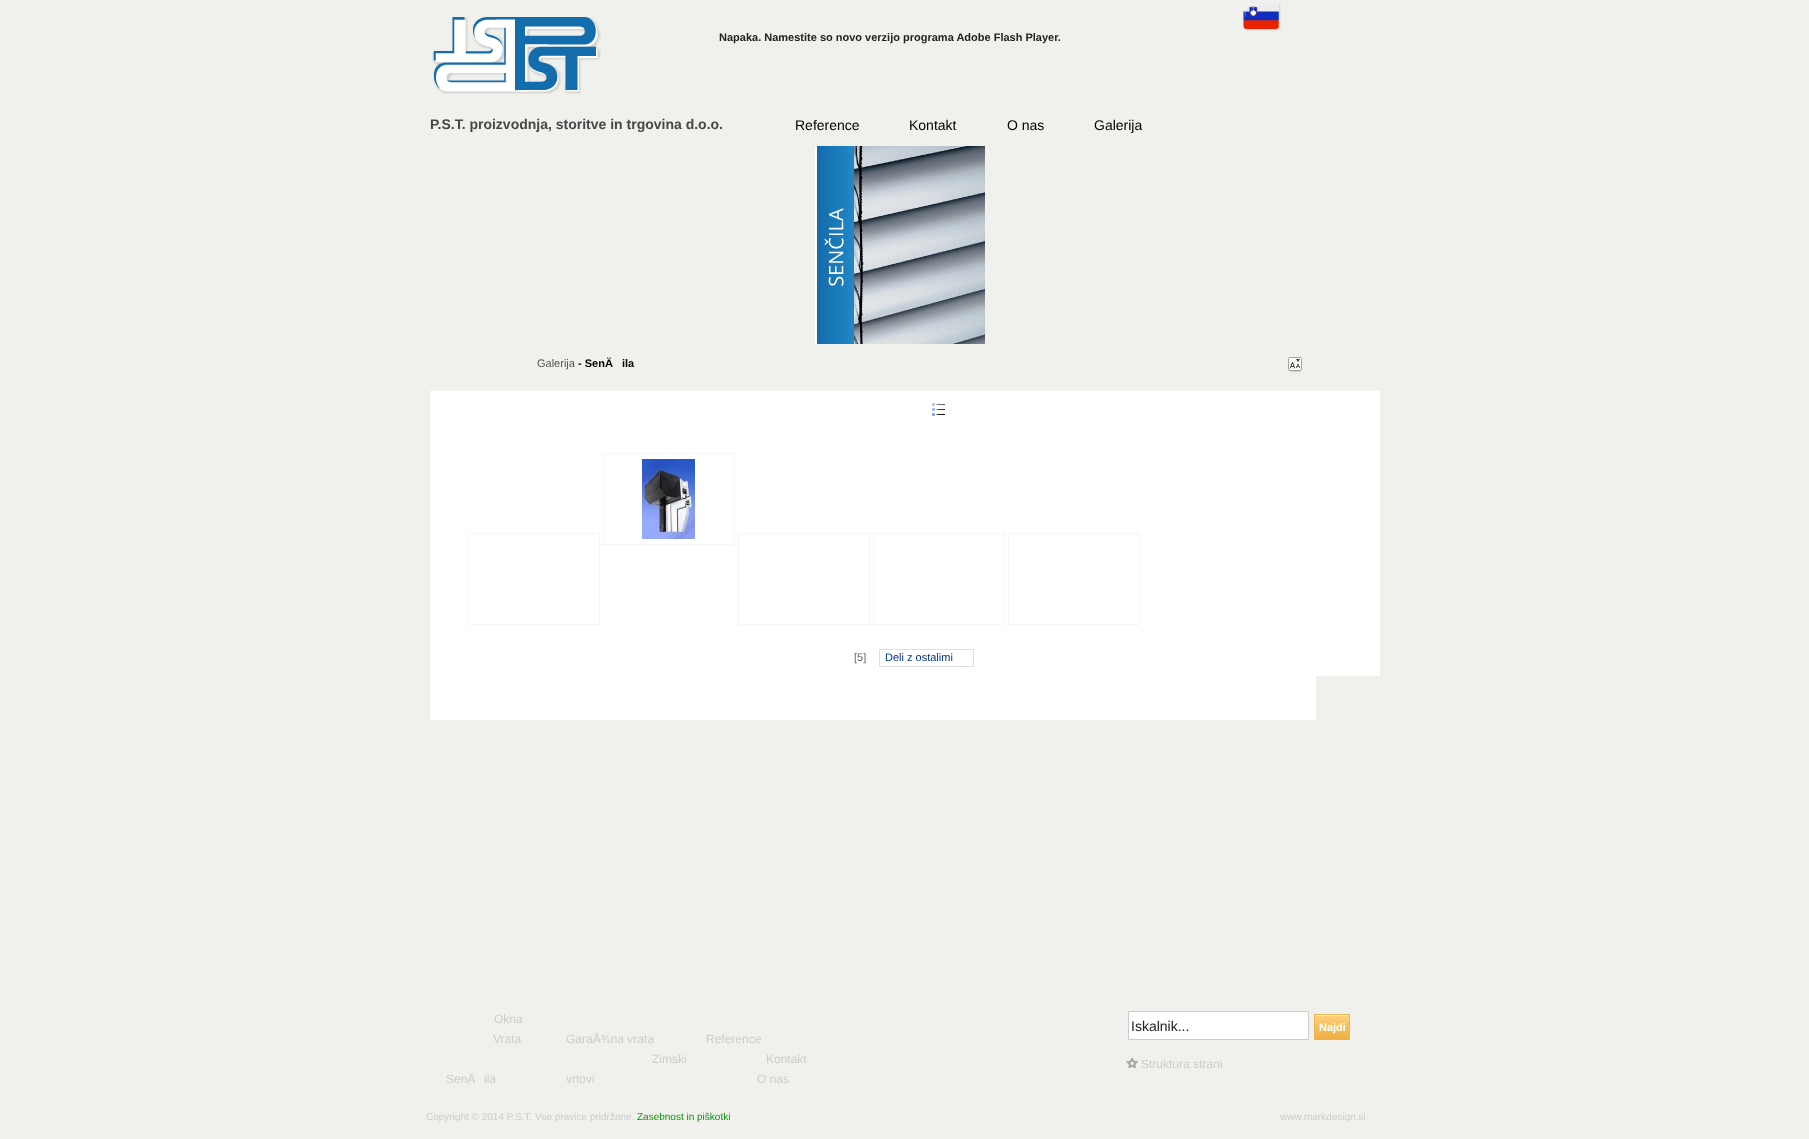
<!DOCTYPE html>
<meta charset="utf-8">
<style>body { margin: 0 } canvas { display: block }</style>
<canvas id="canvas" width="1809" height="1139"></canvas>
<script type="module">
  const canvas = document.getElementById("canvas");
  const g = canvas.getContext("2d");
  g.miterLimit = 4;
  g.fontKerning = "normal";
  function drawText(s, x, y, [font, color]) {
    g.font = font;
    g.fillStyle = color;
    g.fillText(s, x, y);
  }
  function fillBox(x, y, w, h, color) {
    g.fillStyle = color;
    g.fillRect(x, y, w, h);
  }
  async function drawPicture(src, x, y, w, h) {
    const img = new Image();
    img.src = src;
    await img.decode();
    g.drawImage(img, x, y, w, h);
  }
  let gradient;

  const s1 = ["bold 11px Liberation Sans", "#222222"];
  const s2 = ["bold 14px Liberation Sans", "#474747"];
  const s3 = ["14px Liberation Sans", "#000000"];
  const s4 = ["11px Liberation Sans", "#555555"];
  const s5 = ["bold 11px Liberation Sans", "#000000"];
  const s6 = ["11px Liberation Sans", "#666666"];
  const s7 = ["11px Liberation Sans", "#003399"];
  const s8 = ["12px Liberation Sans", "#CCCCCC"];
  const s9 = ["14px Liberation Sans", "#222222"];
  const s10 = ["bold 11px Liberation Sans", "#FFFFFF"];
  const s11 = ["10px Liberation Sans", "#CCCCCC"];
  const s12 = ["10px Liberation Sans", "#009900"];

  fillBox(0, 0, 1809, 1139, "#F0F0EC");
  await drawPicture("pic1.png", 432, 17, 169, 77);
  drawText("Napaka. Namestite so novo verzijo programa Adobe Flash Player.", 719, 41, s1);
  await drawPicture("pic2.png", 1243, 3, 38, 28);
  drawText("P.S.T. proizvodnja, storitve in trgovina d.o.o.", 430, 129, s2);
  drawText("Reference", 795, 130, s3);
  drawText("Kontakt", 909, 130, s3);
  drawText("O nas", 1007, 130, s3);
  drawText("Galerija", 1094, 130, s3);
  await drawPicture("pic3.png", 815, 146, 170, 198);
  drawText("Galerija", 537, 367, s4);
  drawText("- SenÄ", 578, 367, s5);
  drawText("ila", 622, 367, s5);
  await drawPicture("pic4.png", 1288, 357, 14, 15);
  fillBox(430, 391, 950, 285, "#FFFFFF");
  await drawPicture("pic5.png", 932, 403, 13, 13);
  g.beginPath();
  g.moveTo(603, 453.5);
  g.lineTo(735, 453.5);
  g.strokeStyle = "#EEEEEE";
  g.setLineDash([1, 1]);
  g.stroke();
  g.beginPath();
  g.moveTo(734.5, 453);
  g.lineTo(734.5, 545);
  g.stroke();
  g.beginPath();
  g.moveTo(603, 544.5);
  g.lineTo(735, 544.5);
  g.stroke();
  g.beginPath();
  g.moveTo(603.5, 453);
  g.lineTo(603.5, 545);
  g.stroke();
  await drawPicture("pic6.png", 642, 459, 53, 80);
  g.beginPath();
  g.moveTo(468, 533.5);
  g.lineTo(600, 533.5);
  g.stroke();
  g.beginPath();
  g.moveTo(599.5, 533);
  g.lineTo(599.5, 625);
  g.stroke();
  g.beginPath();
  g.moveTo(468, 624.5);
  g.lineTo(600, 624.5);
  g.stroke();
  g.beginPath();
  g.moveTo(468.5, 533);
  g.lineTo(468.5, 625);
  g.stroke();
  g.beginPath();
  g.moveTo(738, 533.5);
  g.lineTo(870, 533.5);
  g.stroke();
  g.beginPath();
  g.moveTo(869.5, 533);
  g.lineTo(869.5, 625);
  g.stroke();
  g.beginPath();
  g.moveTo(738, 624.5);
  g.lineTo(870, 624.5);
  g.stroke();
  g.beginPath();
  g.moveTo(738.5, 533);
  g.lineTo(738.5, 625);
  g.stroke();
  g.beginPath();
  g.moveTo(873, 533.5);
  g.lineTo(1005, 533.5);
  g.stroke();
  g.beginPath();
  g.moveTo(1004.5, 533);
  g.lineTo(1004.5, 625);
  g.stroke();
  g.beginPath();
  g.moveTo(873, 624.5);
  g.lineTo(1005, 624.5);
  g.stroke();
  g.beginPath();
  g.moveTo(873.5, 533);
  g.lineTo(873.5, 625);
  g.stroke();
  g.beginPath();
  g.moveTo(1008, 533.5);
  g.lineTo(1140, 533.5);
  g.stroke();
  g.beginPath();
  g.moveTo(1139.5, 533);
  g.lineTo(1139.5, 625);
  g.stroke();
  g.beginPath();
  g.moveTo(1008, 624.5);
  g.lineTo(1140, 624.5);
  g.stroke();
  g.beginPath();
  g.moveTo(1008.5, 533);
  g.lineTo(1008.5, 625);
  g.stroke();
  drawText("[5]", 854, 661, s6);
  g.strokeStyle = "#D8DFEA";
  g.setLineDash([]);
  g.strokeRect(879.5, 649.5, 94, 17);
  drawText("Deli z ostalimi", 885, 661, s7);
  fillBox(430, 676, 886, 44, "#FFFFFF");
  drawText("Okna", 494, 1023, s8);
  drawText("Vrata", 493, 1043, s8);
  drawText("SenÄ", 446, 1083, s8);
  drawText("ila", 484, 1083, s8);
  drawText("GaraÅ¾na vrata", 566, 1043, s8);
  drawText("Zimski", 652, 1063, s8);
  drawText("vrtovi", 566, 1083, s8);
  drawText("Reference", 706, 1043, s8);
  drawText("Kontakt", 766, 1063, s8);
  drawText("O nas", 757, 1083, s8);
  g.fillStyle = "#FFFFFF";
  g.beginPath();
  g.rect(1128.5, 1011.5, 180, 28);
  g.fill();
  g.strokeStyle = "#CCCCCC";
  g.stroke();
  drawText("Iskalnik...", 1131, 1031, s9);
  gradient = g.createLinearGradient(1315, 1015, 1315, 1039);
  gradient.addColorStop(0.05, "#FFCE79");
  gradient.addColorStop(1, "#EEAF41");
  g.fillStyle = gradient;
  g.fillRect(1315, 1016, 34, 23);
  fillBox(1315, 1015, 34, 1, "#FCEACA");
  g.strokeStyle = "#EEB44F";
  g.strokeRect(1314.5, 1014.5, 35, 25);
  drawText("Najdi", 1319, 1031, s10);
  await drawPicture("pic7.png", 1126, 1057, 12, 11);
  drawText("Struktura strani", 1141, 1068, s8);
  drawText("Copyright © 2014 P.S.T. Vse pravice pridržane.", 426, 1120, s11);
  drawText("Zasebnost in piškotki", 637, 1120, s12);
  drawText("www.markdesign.si", 1280, 1120, s11);
</script>
